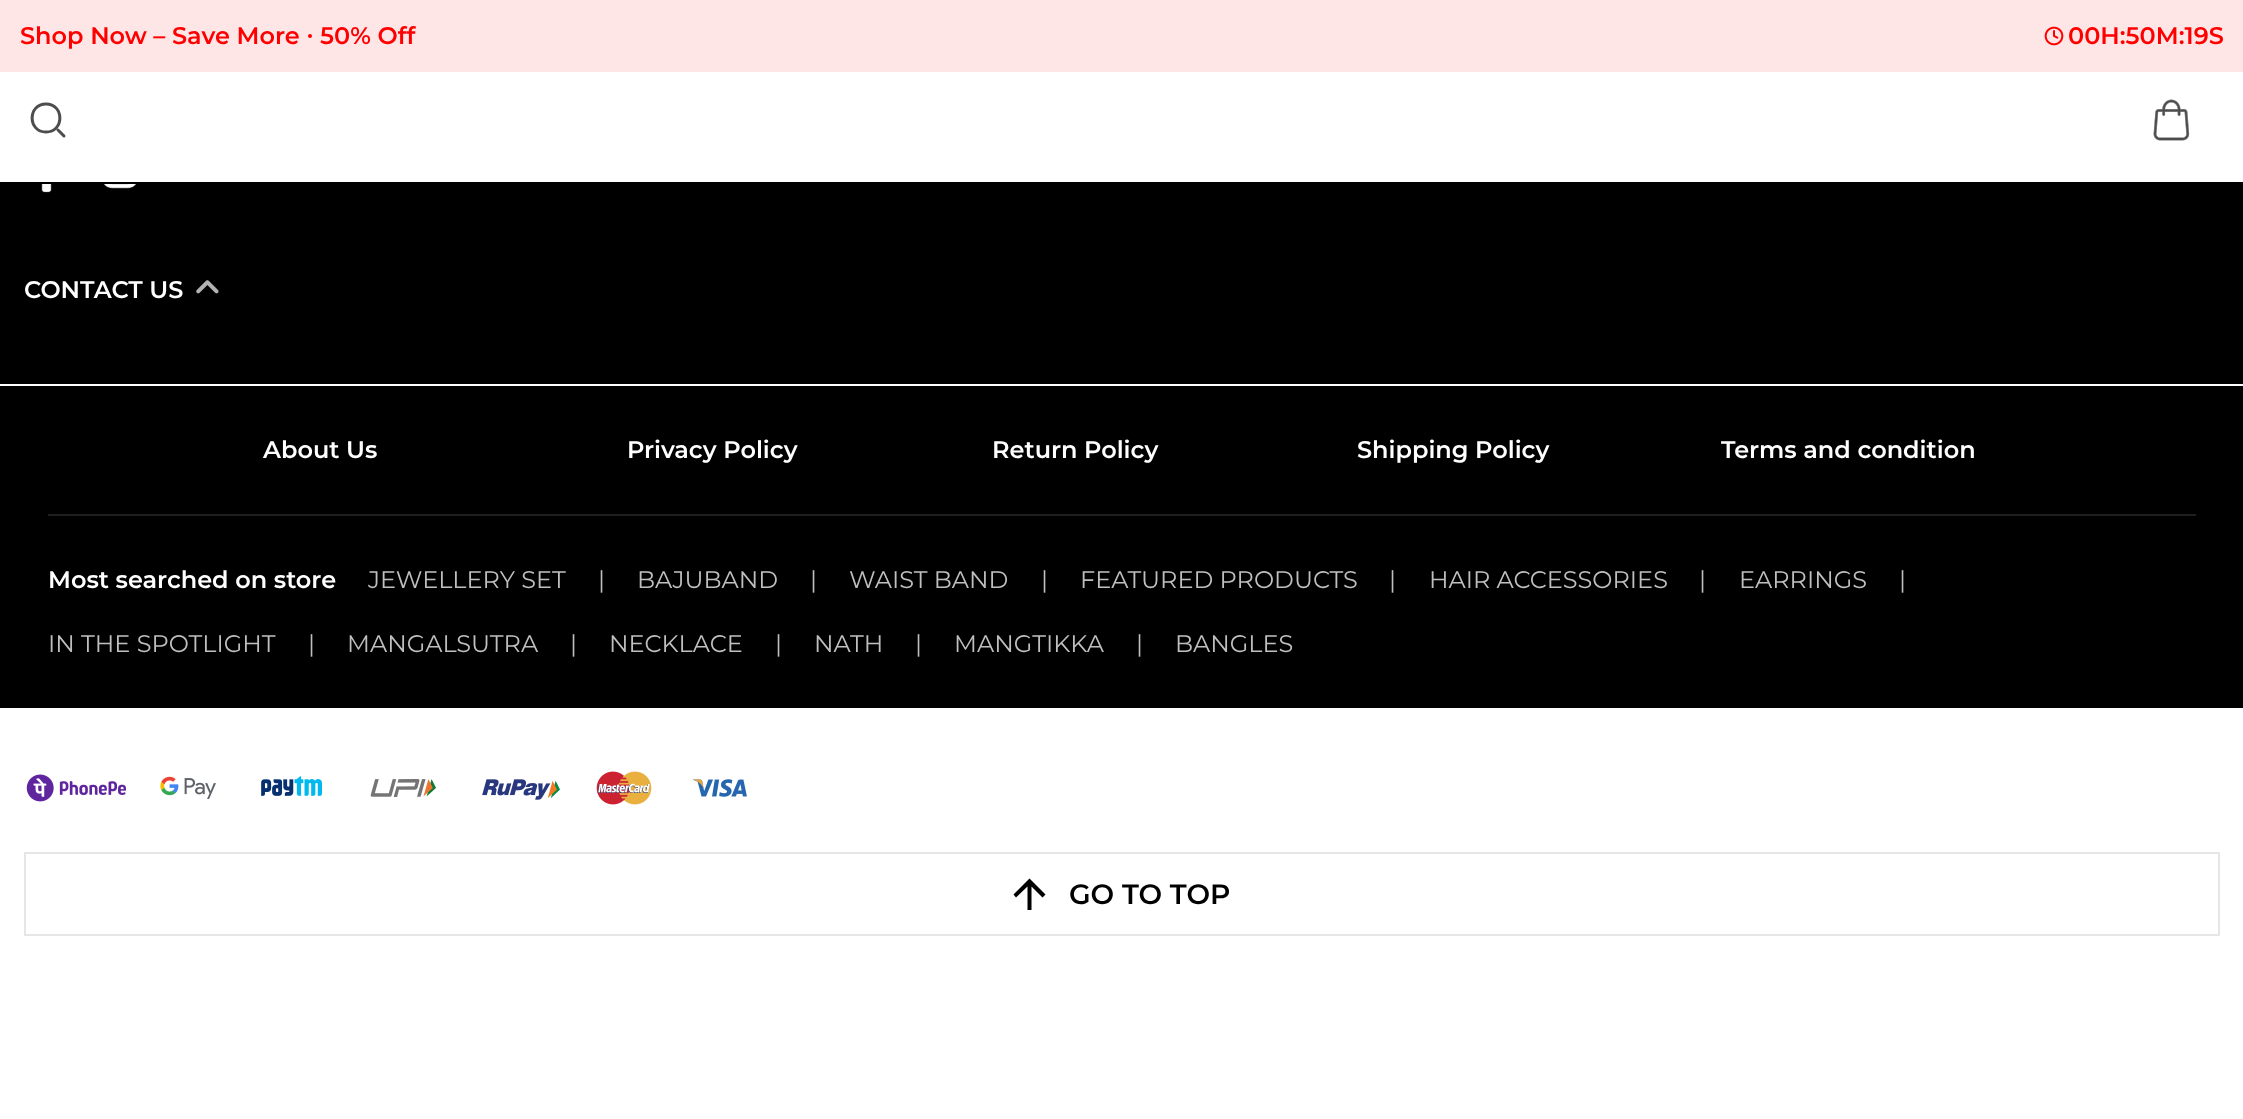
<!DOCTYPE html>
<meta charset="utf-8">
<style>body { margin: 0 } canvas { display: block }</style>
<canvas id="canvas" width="2243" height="1119"></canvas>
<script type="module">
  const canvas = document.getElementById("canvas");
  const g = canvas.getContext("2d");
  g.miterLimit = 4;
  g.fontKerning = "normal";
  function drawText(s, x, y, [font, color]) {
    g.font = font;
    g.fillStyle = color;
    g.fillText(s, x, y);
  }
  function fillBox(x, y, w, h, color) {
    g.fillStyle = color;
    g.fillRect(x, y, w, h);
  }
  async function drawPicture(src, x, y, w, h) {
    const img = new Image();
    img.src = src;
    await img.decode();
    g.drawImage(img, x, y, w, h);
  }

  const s1 = ["600 24px Montserrat", "#FF0000"];
  const s2 = ["600 24px Montserrat", "#FFFFFF"];
  const s3 = ["24px Montserrat", "#BFBFBF"];
  const s4 = ["600 28px Montserrat", "#000000"];

  fillBox(0, 0, 2243, 1119, "#FFFFFF");
  fillBox(0, 0, 2243, 72, "#FFE6E6");
  drawText("Shop Now – Save More", 20, 44, s1);
  g.beginPath();
  g.arc(310, 36, 2, 0, Math.PI * 2);
  g.fill();
  drawText("50% Off", 320, 44, s1);
  await drawPicture("pic1.png", 2044, 26, 20, 20);
  drawText("00H:50M:19S", 2068, 44, s1);
  g.beginPath();
  g.moveTo(46, 132);
  g.bezierCurveTo(64.5, 132, 64.5, 104, 46, 104);
  g.bezierCurveTo(27.5, 104, 27.5, 132, 46, 132);
  g.closePath();
  g.moveTo(64, 136);
  g.lineTo(58, 130);
  g.strokeStyle = "#4D4D4D";
  g.lineWidth = 3;
  g.lineCap = "round";
  g.lineJoin = "round";
  g.stroke();
  await drawPicture("pic2.png", 2153, 99, 37, 42);
  fillBox(0, 182, 2243, 202, "#000000");
  await drawPicture("pic3.png", 41, 184, 11, 9);
  await drawPicture("pic4.png", 104, 184, 32, 5);
  drawText("CONTACT US", 24, 298, s2);
  await drawPicture("pic5.png", 196, 280, 23, 14);
  fillBox(0, 386, 2243, 322, "#000000");
  drawText("About Us", 263, 458, s2);
  drawText("Privacy Policy", 627, 458, s2);
  drawText("Return Policy", 992, 458, s2);
  drawText("Shipping Policy", 1357, 458, s2);
  drawText("Terms and condition", 1721, 458, s2);
  fillBox(48, 514, 2148, 2, "#1F1F1F");
  drawText("Most searched on store", 48, 588, s2);
  drawText("JEWELLERY SET", 368, 588, s3);
  drawText("|", 598, 588, s3);
  drawText("BAJUBAND", 637, 588, s3);
  drawText("|", 810, 588, s3);
  drawText("WAIST BAND", 849, 588, s3);
  drawText("|", 1041, 588, s3);
  drawText("FEATURED PRODUCTS", 1080, 588, s3);
  drawText("|", 1389, 588, s3);
  drawText("HAIR ACCESSORIES", 1429, 588, s3);
  drawText("|", 1699, 588, s3);
  drawText("EARRINGS", 1739, 588, s3);
  drawText("|", 1899, 588, s3);
  drawText("IN THE SPOTLIGHT", 48, 652, s3);
  drawText("|", 308, 652, s3);
  drawText("MANGALSUTRA", 347, 652, s3);
  drawText("|", 570, 652, s3);
  drawText("NECKLACE", 609, 652, s3);
  drawText("|", 775, 652, s3);
  drawText("NATH", 814, 652, s3);
  drawText("|", 915, 652, s3);
  drawText("MANGTIKKA", 954, 652, s3);
  drawText("|", 1136, 652, s3);
  drawText("BANGLES", 1175, 652, s3);
  await drawPicture("pic6.png", 26, 774, 100, 28);
  await drawPicture("pic7.png", 160, 776, 56, 23);
  await drawPicture("pic8.png", 261, 776, 61, 20);
  await drawPicture("pic9.png", 370, 779, 66, 18);
  await drawPicture("pic10.png", 482, 779, 78, 21);
  await drawPicture("pic11.png", 596, 771, 56, 34);
  await drawPicture("pic12.png", 693, 779, 54, 18);
  g.strokeStyle = "#E6E6E6";
  g.lineWidth = 2;
  g.lineJoin = "miter";
  g.strokeRect(25, 853, 2194, 82);
  g.fillStyle = "#000000";
  g.beginPath();
  g.moveTo(1027.5, 910);
  g.lineTo(1027.5, 886.5);
  g.lineTo(1016, 897.5);
  g.lineTo(1013.5, 894.5);
  g.lineTo(1029.5, 878.5);
  g.lineTo(1045.5, 894.5);
  g.lineTo(1042.5, 897.5);
  g.lineTo(1031.5, 886.5);
  g.lineTo(1031.5, 910);
  g.closePath();
  g.fill();
  drawText("GO TO TOP", 1069, 904, s4);
</script>
